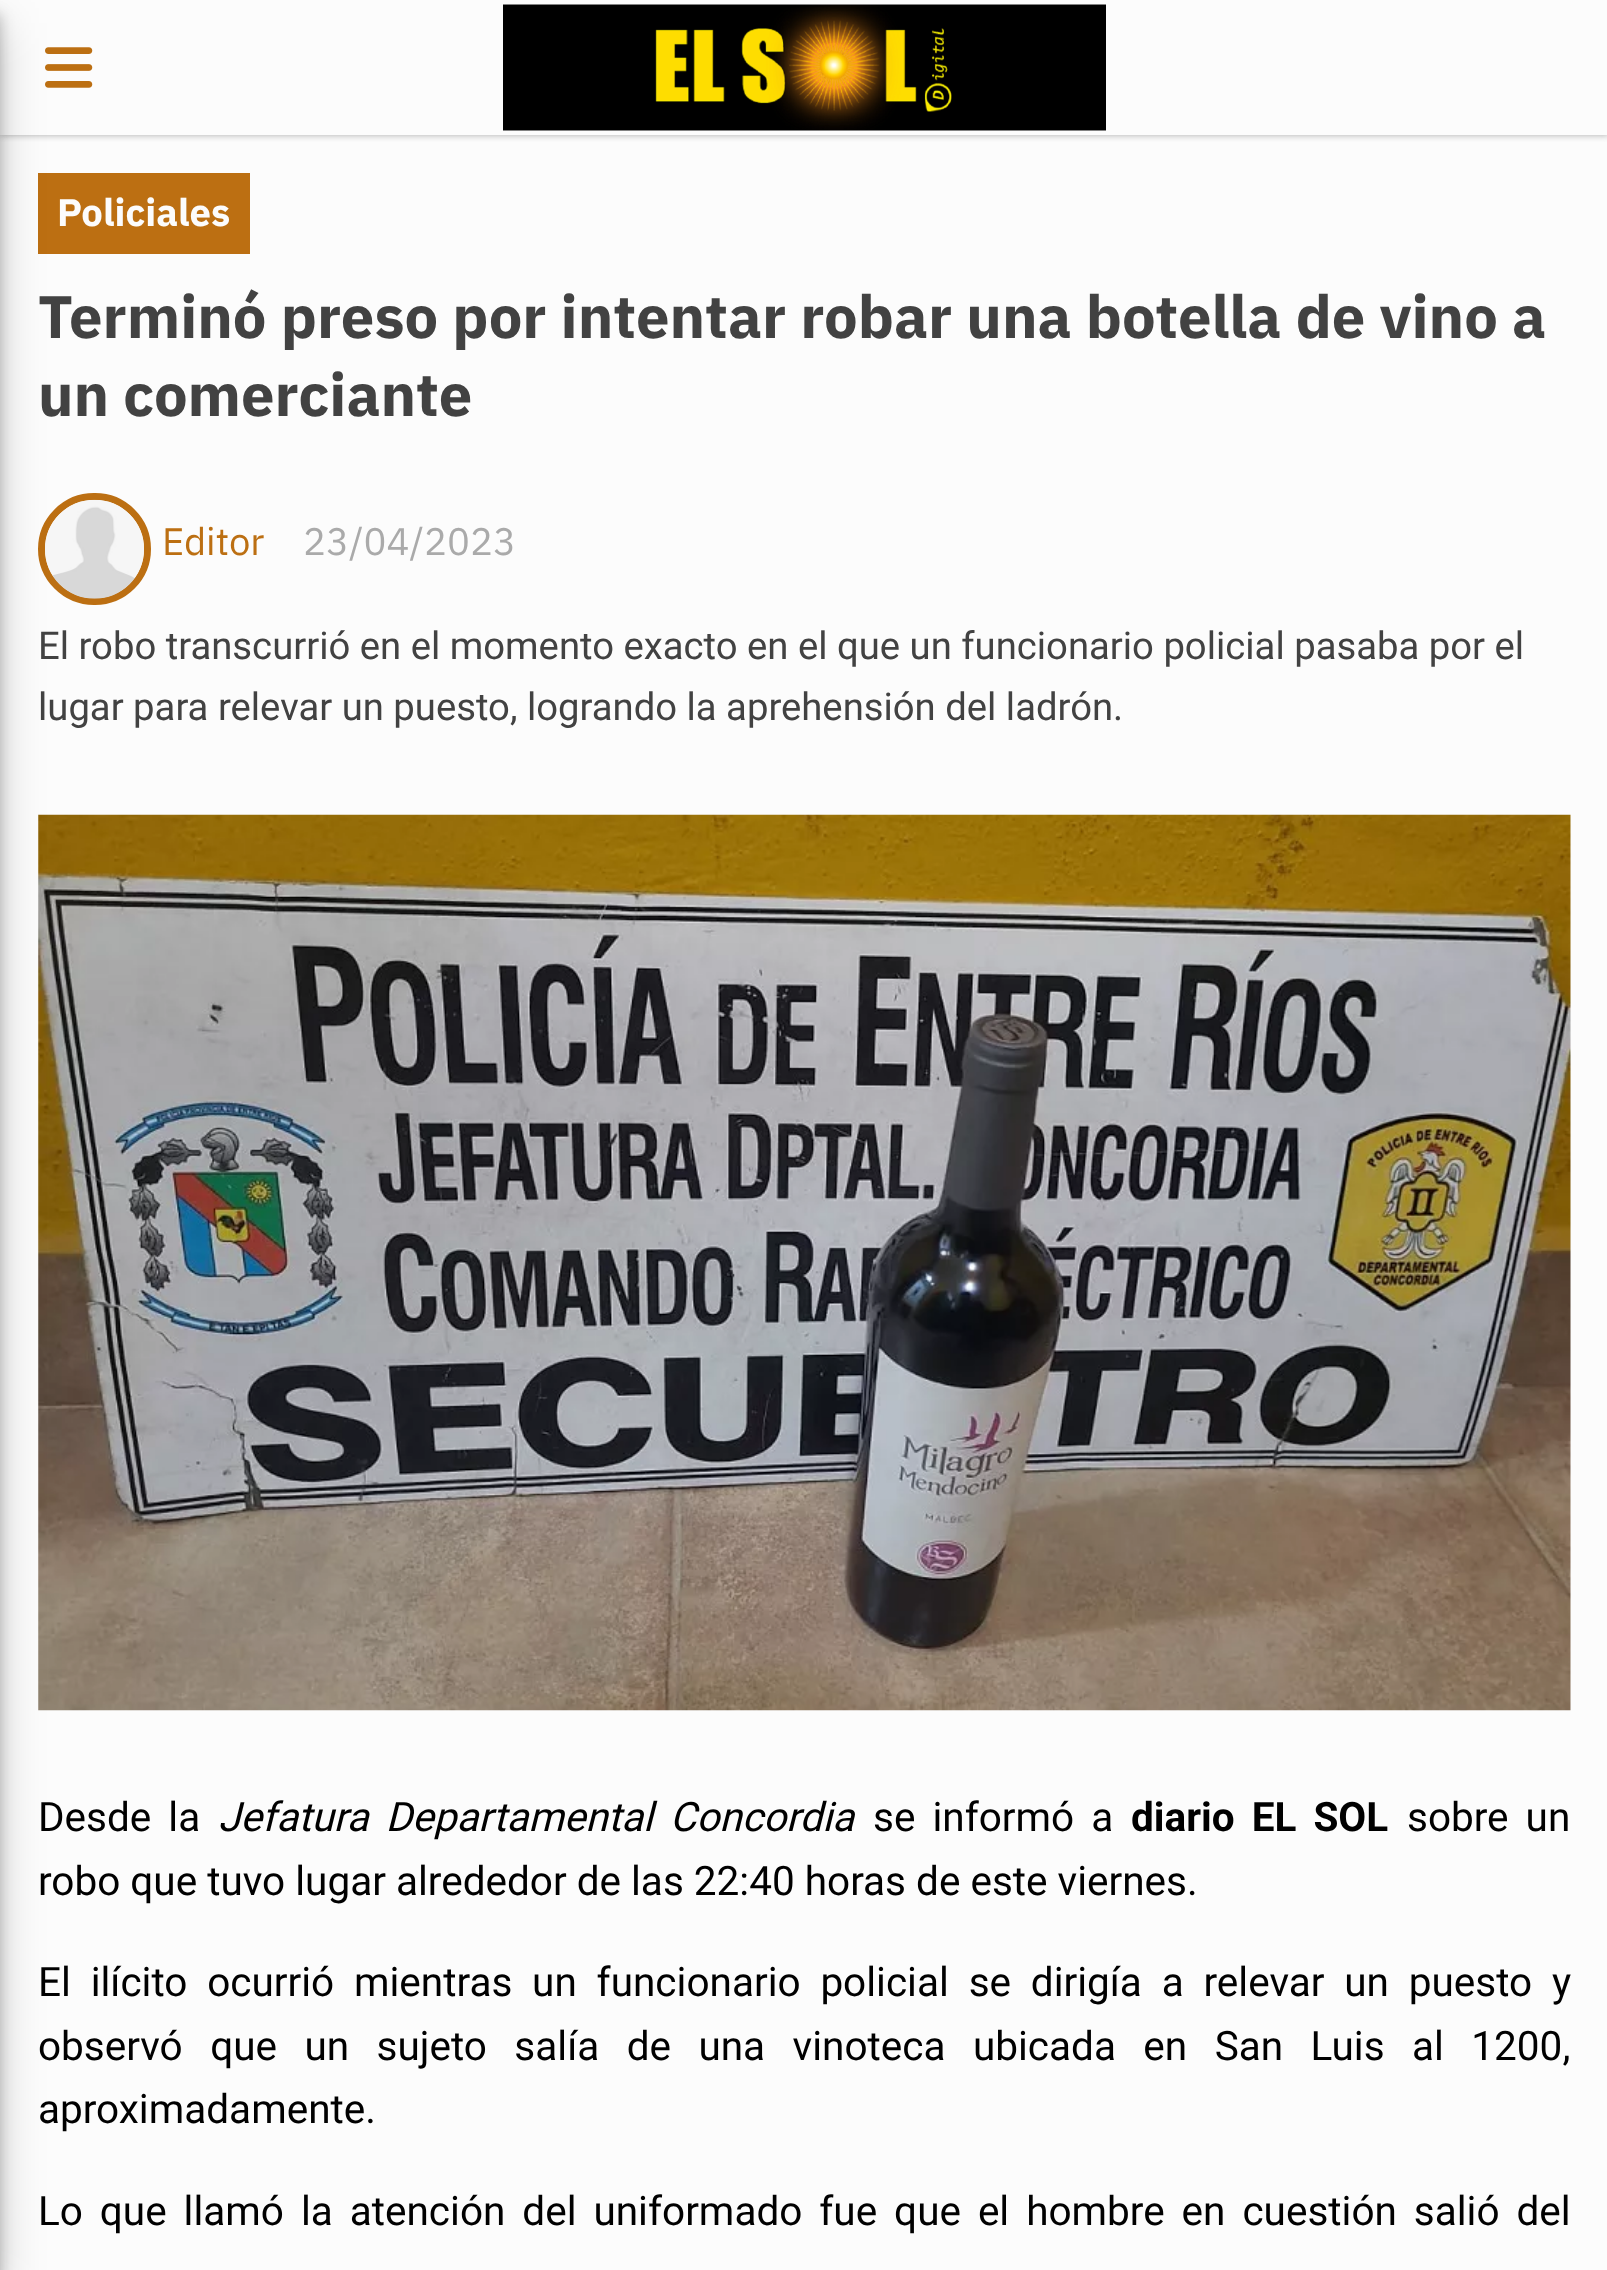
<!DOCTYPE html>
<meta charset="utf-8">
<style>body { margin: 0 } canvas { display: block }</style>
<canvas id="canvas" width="1607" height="2270"></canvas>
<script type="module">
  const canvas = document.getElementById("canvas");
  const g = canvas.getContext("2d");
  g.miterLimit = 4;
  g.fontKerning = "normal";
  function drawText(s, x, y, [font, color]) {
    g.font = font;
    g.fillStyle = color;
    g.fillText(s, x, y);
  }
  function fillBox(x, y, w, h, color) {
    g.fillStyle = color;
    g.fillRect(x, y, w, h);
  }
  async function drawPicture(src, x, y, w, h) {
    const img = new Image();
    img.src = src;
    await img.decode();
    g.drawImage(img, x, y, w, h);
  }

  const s1 = ["bold 38.25px IBM Plex Sans", "#FCFCFC"];
  const s2 = ["bold 59.75px IBM Plex Sans", "#424242"];
  const s3 = ["38.25px IBM Plex Sans", "#BC6F12"];
  const s4 = ["38.25px IBM Plex Sans", "#AAAAAA"];
  const s5 = ["38.25px Roboto", "#424242"];
  const s6 = ["40.5px Roboto", "#000000"];
  const s7 = ["italic 40.5px Roboto", "#000000"];
  const s8 = ["bold 40.5px Roboto", "#000000"];

  fillBox(0, 0, 1607, 2270, "#FCFCFC");
  g.save();
  g.beginPath();
  g.rect(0, 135, 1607, 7);
  g.clip();
  g.fillStyle = "#AAAAAA";
  g.filter = "blur(3.5px)";
  g.beginPath();
  g.rect(0, 0, 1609, 135);
  g.fill();
  g.filter = "none";
  g.restore();
  g.fillStyle = "rgba(0, 0, 0, 0.23)";
  g.filter = "blur(7px)";
  g.beginPath();
  g.rect(-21, 14, 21, 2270);
  g.fill();
  g.filter = "none";
  await drawPicture("pic2.png", 45, 47, 48, 41);
  fillBox(38, 173, 212, 81, "#BC6F12");
  g.beginPath();
  g.roundRect(41.5, 496.5, 106, 105, 52.5);
  g.strokeStyle = "#BC6F12";
  g.lineWidth = 7;
  g.stroke();
  await drawPicture("pic3.png", 45, 499, 99, 100);
  await drawPicture("pic4.png", 38, 814, 1533, 897);
  g.fillStyle = "rgba(0, 0, 0, 0.19)";
  g.filter = "blur(22.5px)";
  g.beginPath();
  g.rect(-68, 23, 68, 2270);
  g.fill();
  g.filter = "none";
  await drawPicture("pic1.png", 503, 4, 603, 127);
  drawText("Policiales", 57, 226, s1);
  drawText("Terminó preso por intentar robar una botella de vino a", 38, 338, s2);
  drawText("un comerciante", 38, 416, s2);
  drawText("Editor", 162, 555, s3);
  drawText("23/04/2023", 303, 555, s4);
  drawText("El robo transcurrió en el momento exacto en el que un funcionario policial pasaba por el", 38, 659, s5);
  drawText("lugar para relevar un puesto, logrando la aprehensión del ladrón.", 38, 720, s5);
  g.wordSpacing = "7px";
  drawText("Desde la", 38, 1831, s6);
  drawText("Jefatura Departamental Concordia", 218, 1831, s7);
  drawText("se informó a", 873, 1831, s6);
  drawText("diario EL SOL", 1131, 1831, s8);
  drawText("sobre un", 1407, 1831, s6);
  g.wordSpacing = "0px";
  drawText("robo que tuvo lugar alrededor de las 22:40 horas de este viernes.", 38, 1895, s6);
  g.wordSpacing = "9.75px";
  drawText("El ilícito ocurrió mientras un funcionario policial se dirigía a relevar un puesto y", 38, 1996, s6);
  g.wordSpacing = "17.4px";
  drawText("observó que un sujeto salía de una vinoteca ubicada en San Luis al 1200,", 38, 2060, s6);
  g.wordSpacing = "0px";
  drawText("aproximadamente.", 38, 2123, s6);
  g.wordSpacing = "6.9px";
  drawText("Lo que llamó la atención del uniformado fue que el hombre en cuestión salió del", 38, 2225, s6);
</script>
